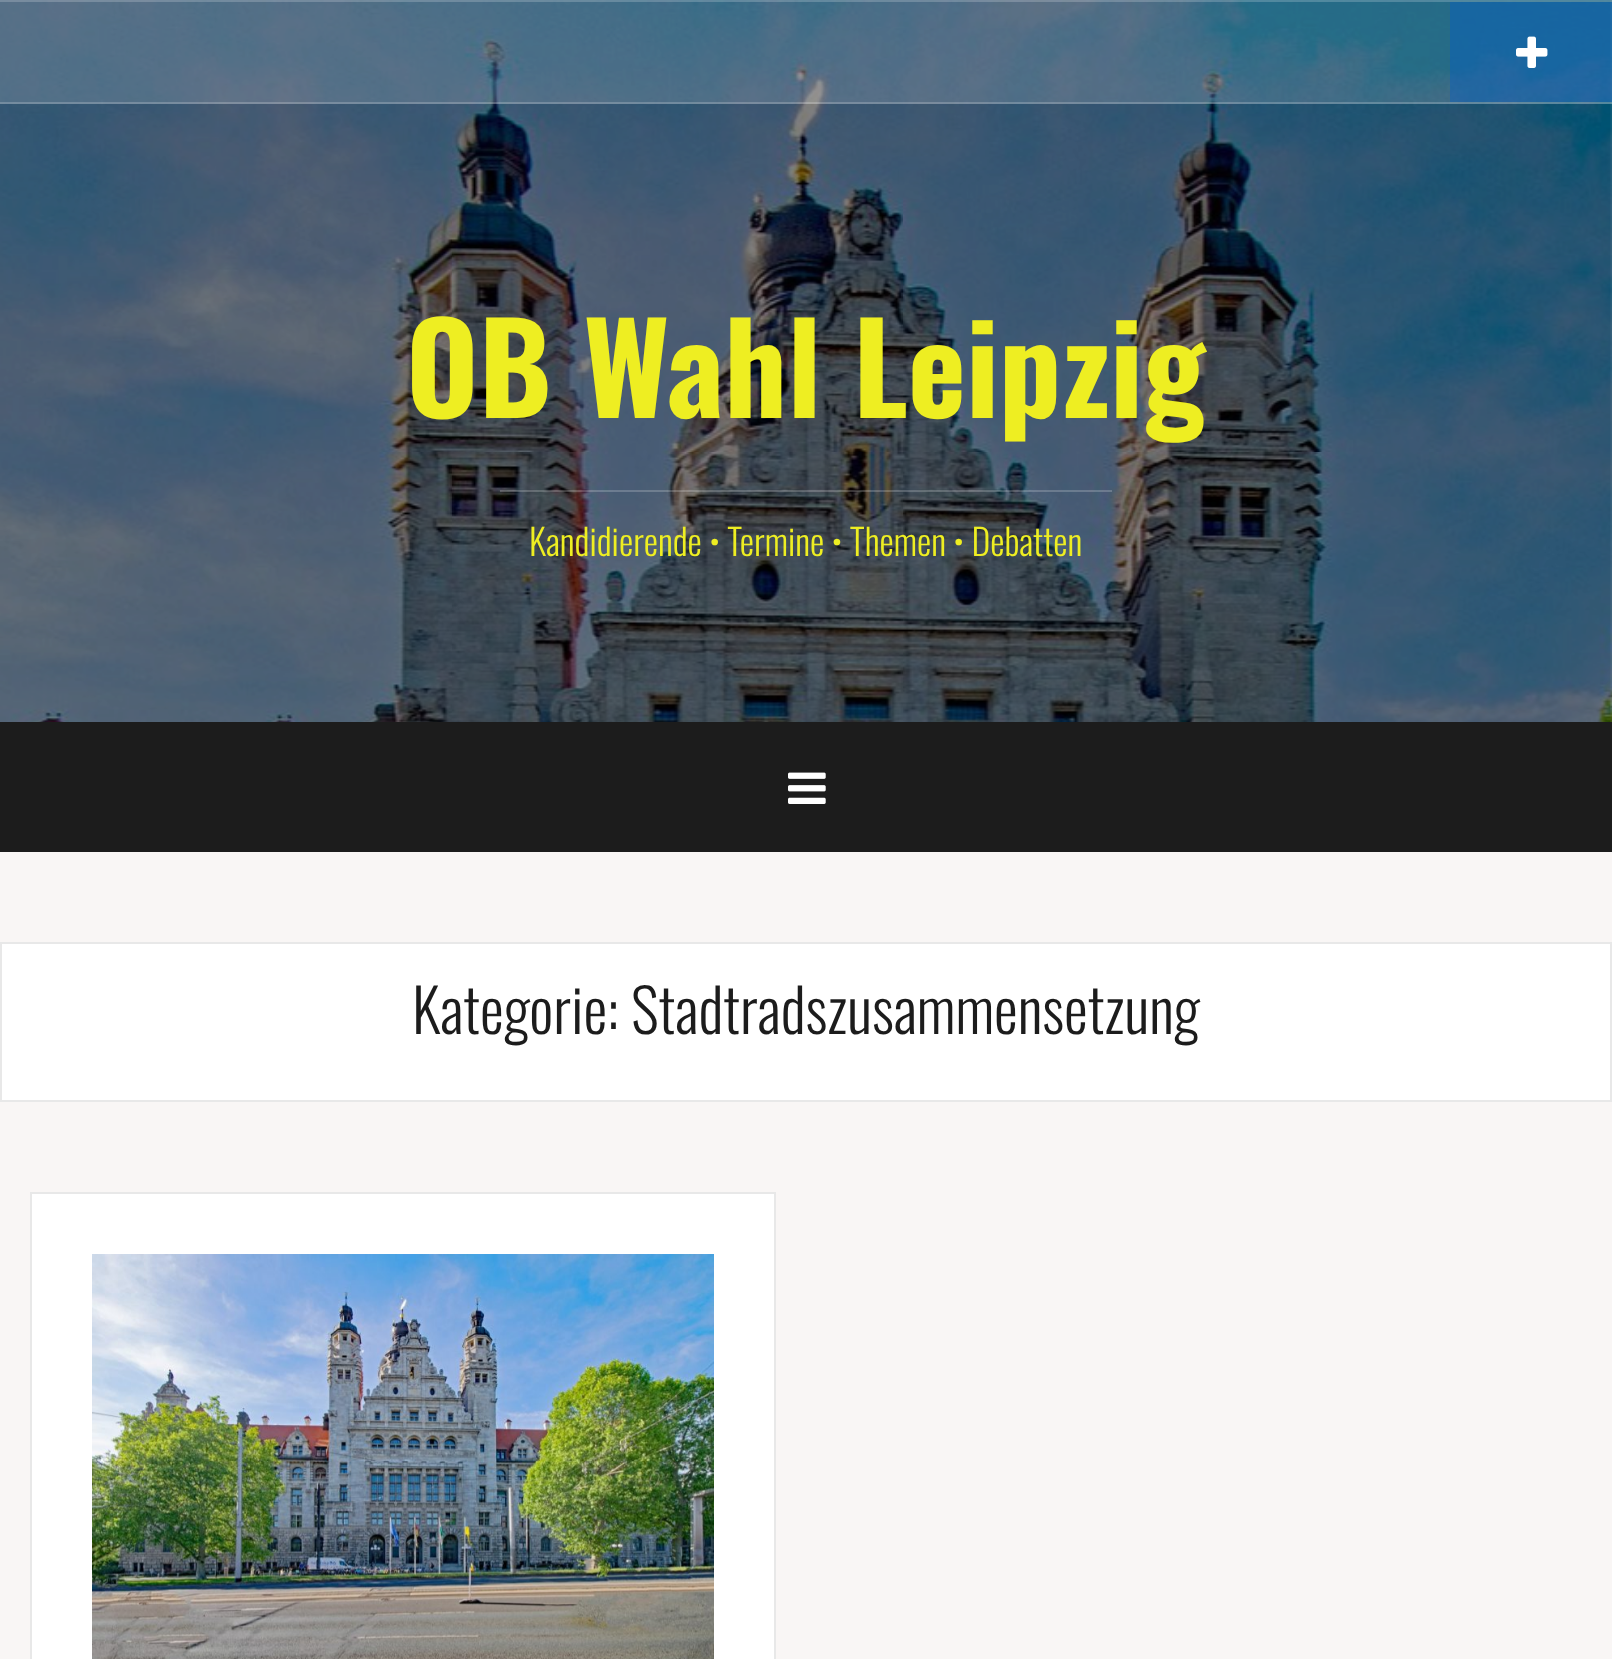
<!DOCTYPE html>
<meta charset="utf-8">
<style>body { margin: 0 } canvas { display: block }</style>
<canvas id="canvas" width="1612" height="1659"></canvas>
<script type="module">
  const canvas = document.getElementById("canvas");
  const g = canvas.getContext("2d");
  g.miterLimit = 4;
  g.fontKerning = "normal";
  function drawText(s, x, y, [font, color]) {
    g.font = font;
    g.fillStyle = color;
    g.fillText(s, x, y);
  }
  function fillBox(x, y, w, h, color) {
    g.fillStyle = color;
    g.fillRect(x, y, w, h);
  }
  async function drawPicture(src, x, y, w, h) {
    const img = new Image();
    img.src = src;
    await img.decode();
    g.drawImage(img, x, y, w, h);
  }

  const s1 = ["bold 124px Oswald", "#EEEE22"];
  const s2 = ["300 36px Oswald", "#EEEE22"];
  const s3 = ["300 60px Oswald", "#1C1C1C"];

  fillBox(0, 0, 1612, 1659, "#F9F6F5");
  await drawPicture("pic1.png", 0, 0, 1612, 722);
  fillBox(0, 0, 1612, 104, "rgba(255, 255, 255, 0.15)");
  fillBox(0, 0, 1612, 2, "rgba(255, 255, 255, 0.2)");
  fillBox(0, 102, 1612, 2, "rgba(255, 255, 255, 0.2)");
  fillBox(1450, 2, 162, 100, "rgba(3, 94, 199, 0.4)");
  await drawPicture("pic2.png", 1516, 36, 32, 32);
  drawText("OB Wahl Leipzig", 406, 418, s1);
  fillBox(500, 490, 612, 2, "rgba(255, 255, 255, 0.2)");
  drawText("Kandidierende • Termine • Themen • Debatten", 529, 556, s2);
  fillBox(0, 722, 1612, 130, "#1C1C1C");
  await drawPicture("pic3.png", 788, 772, 38, 32);
  g.fillStyle = "#FFFFFF";
  g.beginPath();
  g.rect(1, 943, 1610, 158);
  g.fill();
  g.strokeStyle = "#E8E8E8";
  g.lineWidth = 2;
  g.stroke();
  drawText("Kategorie: Stadtradszusammensetzung", 412, 1034, s3);
  g.fillStyle = "#FFFFFF";
  g.beginPath();
  g.rect(31, 1193, 744, 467);
  g.fill();
  g.stroke();
  await drawPicture("pic4.png", 92, 1254, 622, 405);
</script>
